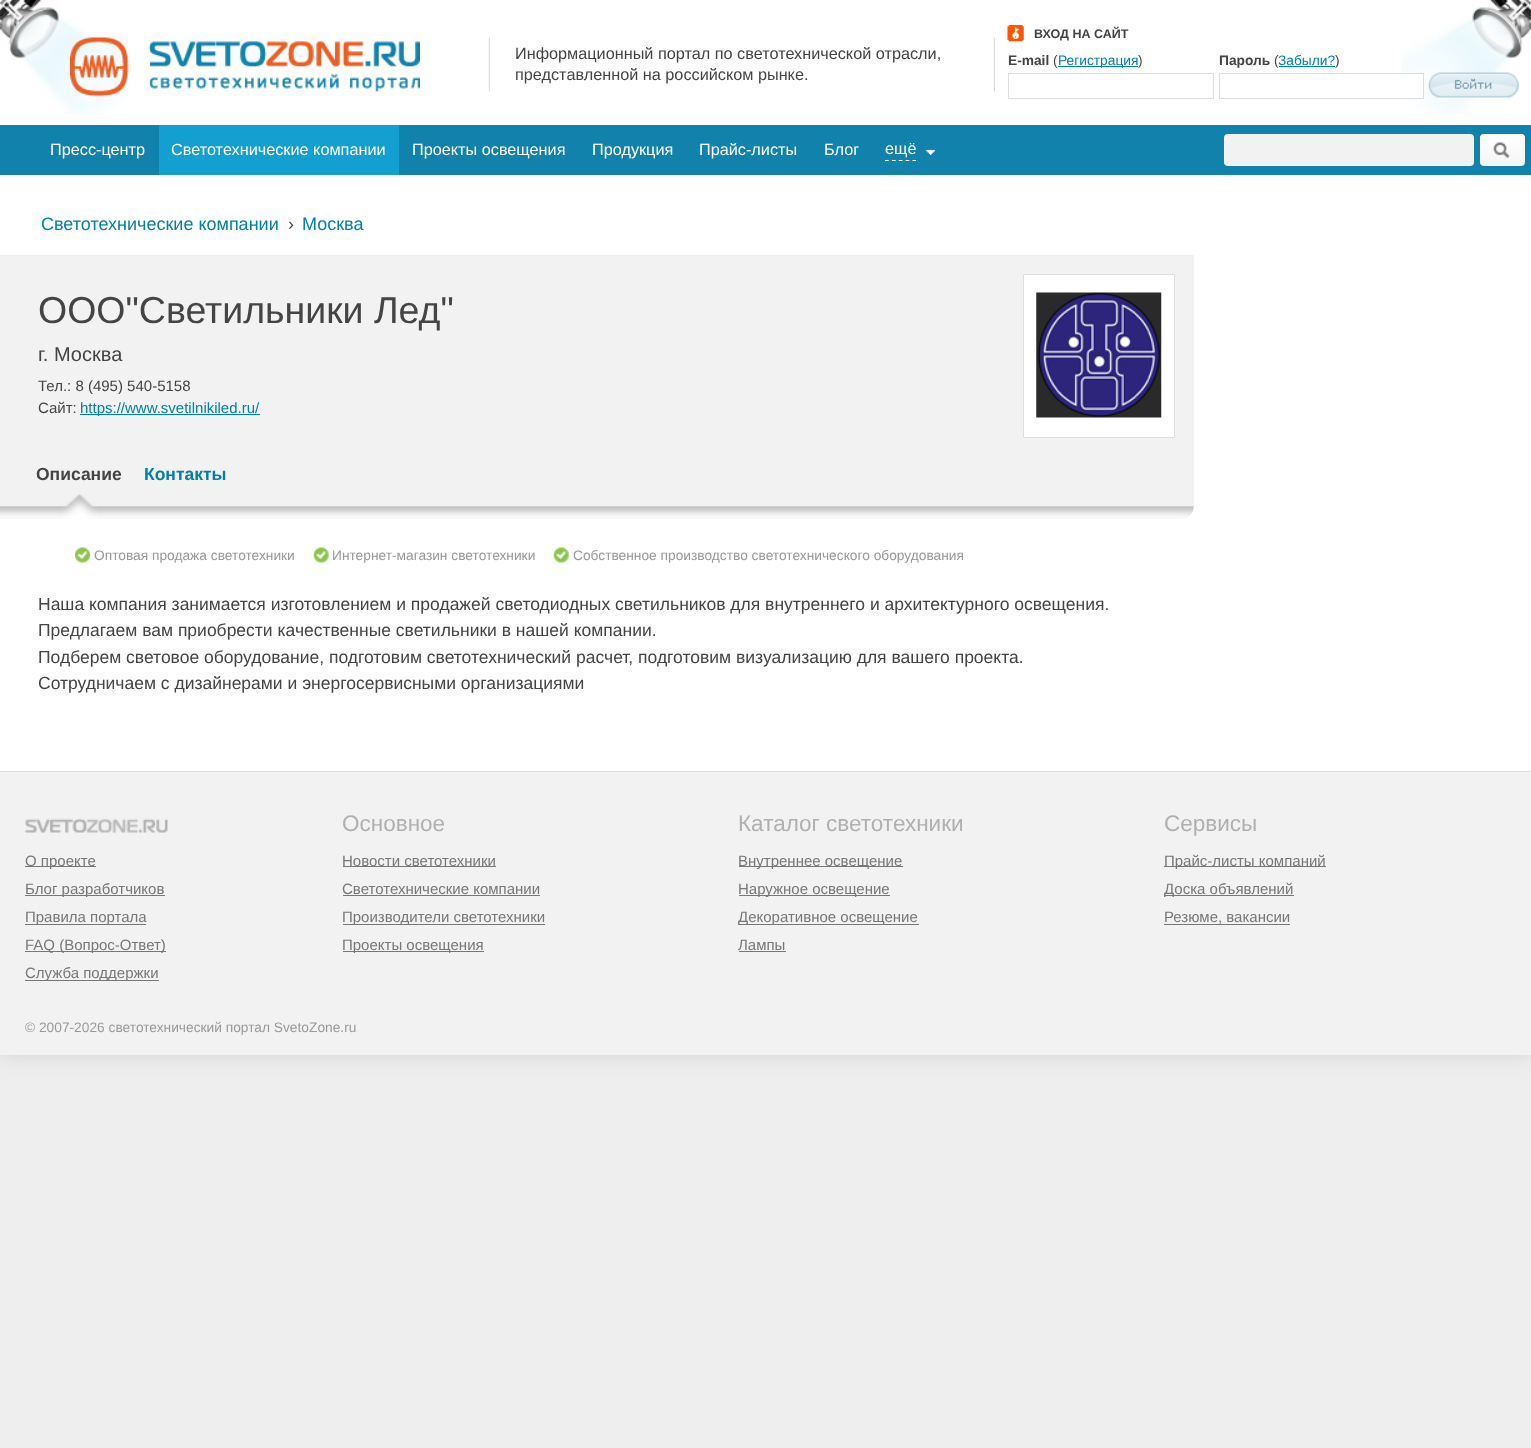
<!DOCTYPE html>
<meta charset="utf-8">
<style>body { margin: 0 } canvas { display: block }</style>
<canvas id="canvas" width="1531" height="1448"></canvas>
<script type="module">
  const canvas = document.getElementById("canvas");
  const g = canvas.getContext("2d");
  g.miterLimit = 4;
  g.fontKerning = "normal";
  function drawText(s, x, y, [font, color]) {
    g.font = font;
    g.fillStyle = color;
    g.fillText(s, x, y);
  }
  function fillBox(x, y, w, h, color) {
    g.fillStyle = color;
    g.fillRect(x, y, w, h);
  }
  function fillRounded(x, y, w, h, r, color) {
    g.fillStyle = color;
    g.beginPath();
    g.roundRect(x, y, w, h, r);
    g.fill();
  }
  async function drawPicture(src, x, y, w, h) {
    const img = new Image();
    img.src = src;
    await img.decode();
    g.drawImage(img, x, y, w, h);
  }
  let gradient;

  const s1 = ["16.25px Liberation Sans", "#444444"];
  const s2 = ["bold 12.5px Liberation Sans", "#444444"];
  const s3 = ["bold 13.75px Liberation Sans", "#444444"];
  const s4 = ["13.75px Liberation Sans", "#444444"];
  const s5 = ["13.75px Liberation Sans", "#0081AB"];
  const s6 = ["16.25px Liberation Sans", "#FFFFFF"];
  const s7 = ["18px Liberation Sans", "#0081AB"];
  const s8 = ["18px Liberation Sans", "#444444"];
  const s9 = ["37.5px Liberation Sans", "#444444"];
  const s10 = ["20px Liberation Sans", "#444444"];
  const s11 = ["15px Liberation Sans", "#444444"];
  const s12 = ["15px Liberation Sans", "#0081AB"];
  const s13 = ["bold 17.5px Liberation Sans", "#444444"];
  const s14 = ["bold 17.5px Liberation Sans", "#0081AB"];
  const s15 = ["13.75px Liberation Sans", "#999999"];
  const s16 = ["17.5px Liberation Sans", "#444444"];
  const s17 = ["22.5px Liberation Sans", "#B0B0B0"];
  const s18 = ["15px Liberation Sans", "#777777"];

  fillBox(0, 0, 1531, 1448, "#EEEEEE");
  g.fillStyle = "#D1D1D1";
  g.filter = "blur(9.5px)";
  g.beginPath();
  g.rect(0, 0, 1531, 1055);
  g.fill();
  g.filter = "none";
  fillBox(0, 0, 1531, 771, "#FFFFFF");
  await drawPicture("pic1.png", 0, 0, 131, 114);
  await drawPicture("pic2.png", 488, 37, 2, 55);
  await drawPicture("pic3.png", 70, 37, 350, 60);
  await drawPicture("pic2.png", 993, 37, 2, 55);
  drawText("Информационный портал по светотехнической отрасли,", 515, 59, s1);
  drawText("представленной на российском рынке.", 515, 80, s1);
  await drawPicture("pic4.png", 1401, 0, 130, 114);
  await drawPicture("pic5.png", 1007, 25, 17, 17);
  drawText("ВХОД НА САЙТ", 1034, 38, s2);
  drawText("E-mail", 1008, 65, s3);
  drawText("(", 1053, 65, s4);
  fillBox(1058, 66, 80, 1, "#0081AB");
  drawText("Регистрация", 1058, 65, s5);
  drawText(")", 1138, 65, s4);
  drawText("Пароль", 1219, 65, s3);
  drawText("(", 1274, 65, s4);
  drawText("Забыли?", 1278, 65, s5);
  fillBox(1279, 66, 56, 1, "#0081AB");
  drawText(")", 1335, 65, s4);
  g.strokeStyle = "#DEDEDE";
  g.strokeRect(1008.5, 73.5, 205, 25);
  fillBox(1401, 74, 22, 24, "#FFFFFF");
  g.strokeRect(1219.5, 73.5, 204, 25);
  await drawPicture("pic6.png", 1428, 72, 91, 26);
  fillBox(0, 125, 1531, 50, "#1182AB");
  drawText("Пресс-центр", 50, 155, s6);
  fillBox(159, 125, 240, 50, "#149FD1");
  drawText("Светотехнические компании", 171, 155, s6);
  drawText("Проекты освещения", 412, 155, s6);
  drawText("Продукция", 592, 155, s6);
  drawText("Прайс-листы", 699, 155, s6);
  drawText("Блог", 824, 155, s6);
  await drawPicture("pic7.png", 926, 149, 9, 6);
  g.beginPath();
  g.moveTo(885, 160.5);
  g.lineTo(916, 160.5);
  g.strokeStyle = "#FFFFFF";
  g.lineWidth = 1.2;
  g.setLineDash([3.75, 3.12]);
  g.stroke();
  drawText("ещё", 885, 154, s6);
  fillRounded(1224, 134, 250, 32, 4, "#F2F2F2");
  gradient = g.createLinearGradient(1503, 134, 1503, 166);
  gradient.addColorStop(0, "#FFFFFF");
  gradient.addColorStop(1, "#F5F5F5");
  g.fillStyle = gradient;
  g.beginPath();
  g.roundRect(1480, 134, 45, 32, 4);
  g.fill();
  g.fillStyle = "#FFFFFF";
  g.beginPath();
  g.moveTo(1484, 135);
  g.lineTo(1521, 135);
  g.bezierCurveTo(1523, 135, 1525, 137, 1525, 139);
  g.bezierCurveTo(1525, 133, 1520, 134, 1515, 134);
  g.lineTo(1490, 134);
  g.bezierCurveTo(1485, 134, 1480, 133, 1480, 139);
  g.bezierCurveTo(1480, 137, 1482, 135, 1484, 135);
  g.closePath();
  g.fill();
  await drawPicture("pic8.png", 1493, 142, 17, 17);
  drawText("Светотехнические компании", 41, 230, s7);
  drawText("›", 288, 230, s8);
  drawText("Москва", 302, 230, s7);
  g.fillStyle = "#F2F2F2";
  g.beginPath();
  g.roundRect(0, 255, 1194, 264, [0, 0, 13, 0]);
  g.fill();
  await drawPicture("pic9.png", 0, 506, 1194, 13);
  drawText("ООО\"Светильники Лед\"", 38, 323, s9);
  drawText("г. Москва", 38, 361, s10);
  drawText("Тел.: 8 (495) 540-5158", 38, 391, s11);
  drawText("Сайт:", 38, 413, s11);
  fillBox(80, 414, 180, 1, "#0081AB");
  drawText("https://www.svetilnikiled.ru/", 80, 413, s12);
  g.fillStyle = "#FFFFFF";
  g.beginPath();
  g.rect(1023.5, 274.5, 151, 163);
  g.fill();
  g.strokeStyle = "#DEDEDE";
  g.lineWidth = 1;
  g.setLineDash([]);
  g.stroke();
  await drawPicture("pic10.png", 1036, 292, 126, 126);
  await drawPicture("pic11.png", 61, 494, 37, 25);
  drawText("Описание", 36, 480, s13);
  drawText("Контакты", 144, 480, s14);
  await drawPicture("pic12.png", 75, 547, 15, 16);
  drawText("Оптовая продажа светотехники", 94, 560, s15);
  await drawPicture("pic13.png", 313, 547, 16, 16);
  drawText("Интернет-магазин светотехники", 332, 560, s15);
  await drawPicture("pic14.png", 553, 547, 16, 16);
  drawText("Собственное производство светотехнического оборудования", 573, 560, s15);
  drawText("Наша компания занимается изготовлением и продажей светодиодных светильников для внутреннего и архитектурного освещения.", 38, 610, s16);
  drawText("Предлагаем вам приобрести качественные светильники в нашей компании.", 38, 636, s16);
  drawText("Подберем световое оборудование, подготовим светотехнический расчет, подготовим визуализацию для вашего проекта.", 38, 663, s16);
  drawText("Сотрудничаем с дизайнерами и энергосервисными организациями", 38, 689, s16);
  fillBox(0, 772, 1531, 283, "#F2F2F2");
  fillBox(0, 771, 1531, 1, "#DEDEDE");
  await drawPicture("pic15.png", 25, 818, 143, 15);
  drawText("Основное", 342, 831, s17);
  drawText("Каталог светотехники", 738, 831, s17);
  drawText("Сервисы", 1164, 831, s17);
  fillBox(25, 866, 71, 1, "#777777");
  drawText("О проекте", 25, 866, s18);
  fillBox(25, 895, 140, 1, "#777777");
  drawText("Блог разработчиков", 25, 894, s18);
  fillBox(25, 924, 121, 1, "#777777");
  drawText("Правила портала", 25, 922, s18);
  fillBox(25, 951, 141, 1, "#777777");
  drawText("FAQ (Вопрос-Ответ)", 25, 950, s18);
  fillBox(25, 980, 134, 1, "#777777");
  drawText("Служба поддержки", 25, 978, s18);
  fillBox(343, 866, 153, 1, "#777777");
  drawText("Новости светотехники", 342, 866, s18);
  drawText("Светотехнические компании", 342, 894, s18);
  fillBox(343, 895, 197, 1, "#777777");
  fillBox(343, 924, 202, 1, "#777777");
  drawText("Производители светотехники", 342, 922, s18);
  fillBox(343, 951, 141, 1, "#777777");
  drawText("Проекты освещения", 342, 950, s18);
  fillBox(739, 866, 164, 1, "#777777");
  drawText("Внутреннее освещение", 738, 866, s18);
  fillBox(739, 895, 151, 1, "#777777");
  drawText("Наружное освещение", 738, 894, s18);
  fillBox(739, 924, 180, 1, "#777777");
  drawText("Декоративное освещение", 738, 922, s18);
  drawText("Лампы", 738, 950, s18);
  fillBox(739, 951, 47, 1, "#777777");
  fillBox(1164, 866, 162, 1, "#777777");
  drawText("Прайс-листы компаний", 1164, 866, s18);
  fillBox(1164, 895, 130, 1, "#777777");
  drawText("Доска объявлений", 1164, 894, s18);
  drawText("Резюме, вакансии", 1164, 922, s18);
  fillBox(1164, 924, 126, 1, "#777777");
  drawText("© 2007-2026 светотехнический портал SvetoZone.ru", 25, 1032, s15);
</script>
